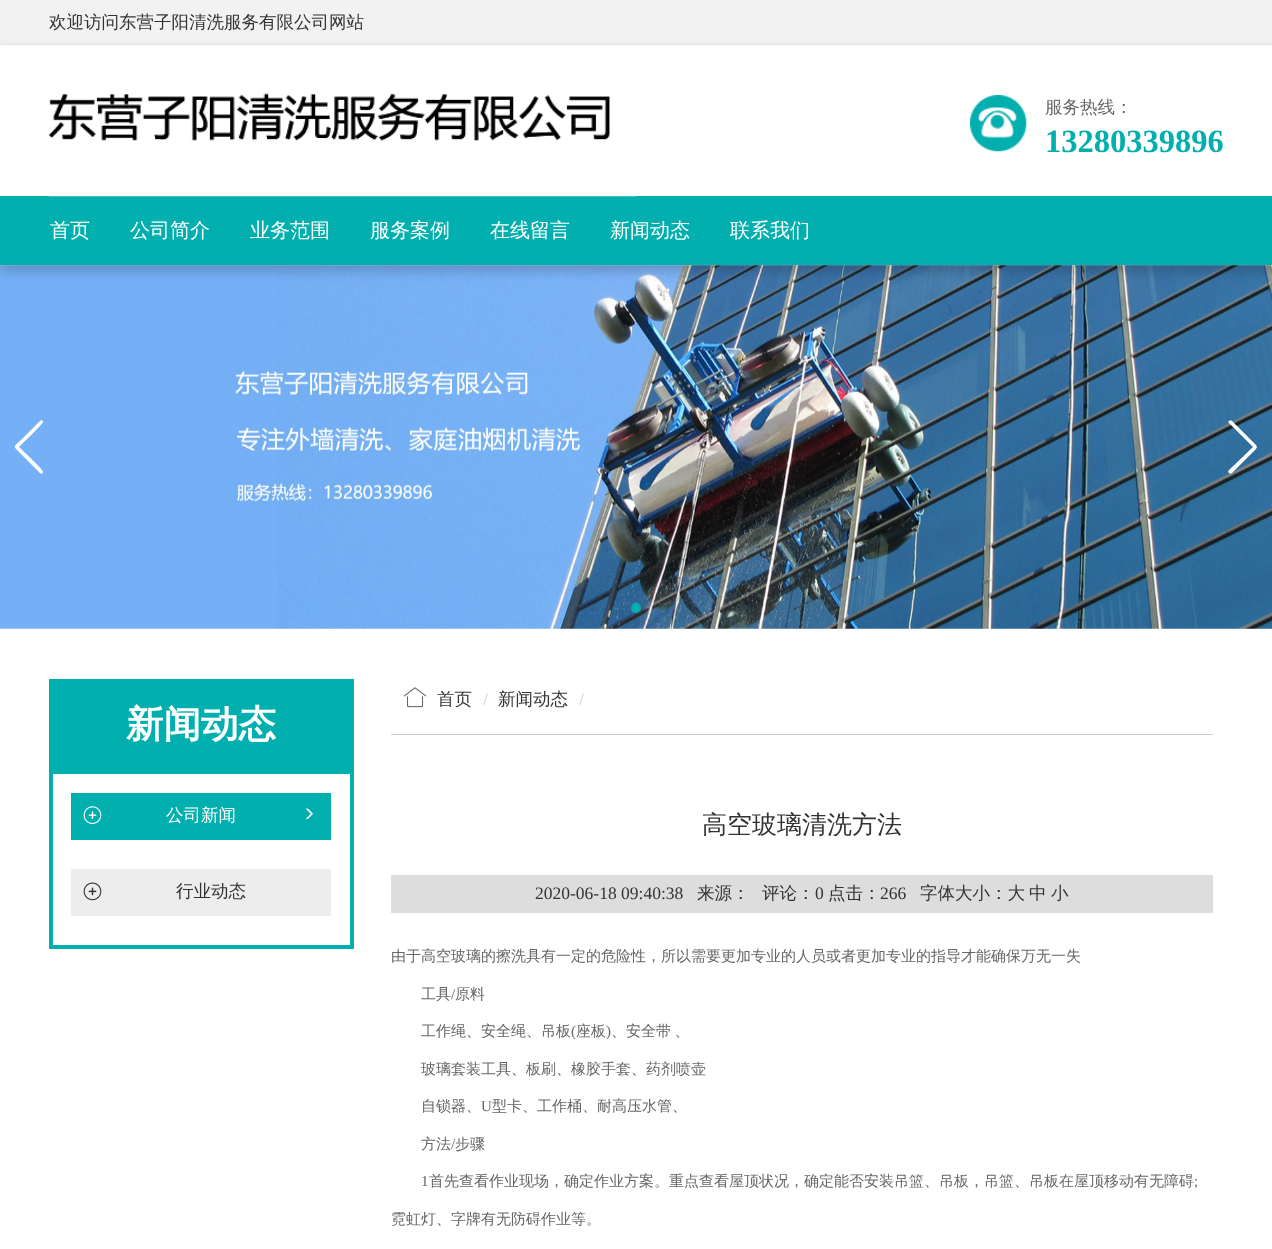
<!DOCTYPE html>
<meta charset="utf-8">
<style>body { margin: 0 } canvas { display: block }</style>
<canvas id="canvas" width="1272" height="1249"></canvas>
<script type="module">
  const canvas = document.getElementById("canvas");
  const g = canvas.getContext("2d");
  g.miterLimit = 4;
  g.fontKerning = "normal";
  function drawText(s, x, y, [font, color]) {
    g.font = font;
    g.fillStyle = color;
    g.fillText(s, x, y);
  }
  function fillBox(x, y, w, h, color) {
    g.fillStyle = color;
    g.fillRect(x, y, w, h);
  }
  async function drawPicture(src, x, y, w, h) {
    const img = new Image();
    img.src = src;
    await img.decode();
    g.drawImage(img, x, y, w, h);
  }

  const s1 = ["500 17.5px WenQuanYi Zen Hei", "#333333"];
  const s2 = ["500 17.5px WenQuanYi Zen Hei", "#666666"];
  const s3 = ["bold 32.5px Liberation Serif", "#01AFAE"];
  const s4 = ["500 20px WenQuanYi Zen Hei", "#FFFFFF"];
  const s5 = ["bold 37.5px WenQuanYi Zen Hei", "#FFFFFF"];
  const s6 = ["500 17.5px WenQuanYi Zen Hei", "#FFFFFF"];
  const s7 = ["17.5px Liberation Serif", "#CCCCCC"];
  const s8 = ["500 25px WenQuanYi Zen Hei", "#333333"];
  const s9 = ["17.5px Liberation Serif", "#333333"];
  const s10 = ["500 15px WenQuanYi Zen Hei", "#666666"];
  const s11 = ["15px Liberation Serif", "#666666"];

  fillBox(0, 0, 1272, 1249, "#FFFFFF");
  fillBox(0, 0, 1272, 44, "#F2F2F2");
  fillBox(0, 44, 1272, 1, "#E7E7E7");
  drawText("欢迎访问东营子阳清洗服务有限公司网站", 49, 28, s1);
  await drawPicture("pic3.png", 0, 265, 1272, 364);
  g.save();
  g.beginPath();
  g.moveTo(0, 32);
  g.lineTo(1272, 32);
  g.lineTo(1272, 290);
  g.lineTo(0, 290);
  g.closePath();
  g.moveTo(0, 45);
  g.lineTo(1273, 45);
  g.lineTo(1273, 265);
  g.lineTo(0, 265);
  g.closePath();
  g.clip("evenodd");
  g.fillStyle = "rgba(6, 0, 1, 0.2)";
  g.filter = "blur(6px)";
  g.beginPath();
  g.rect(0, 51, 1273, 220);
  g.fill();
  g.filter = "none";
  g.restore();
  fillBox(0, 196, 1272, 69, "#01AFAE");
  await drawPicture("pic1.png", 48, 93, 589, 104);
  await drawPicture("pic2.png", 970, 95, 57, 57);
  drawText("服务热线：", 1045, 113, s2);
  drawText("13280339896", 1045, 152, s3);
  drawText("首页", 50, 237, s4);
  drawText("公司简介", 130, 237, s4);
  drawText("业务范围", 250, 237, s4);
  drawText("服务案例", 370, 237, s4);
  drawText("在线留言", 490, 237, s4);
  drawText("新闻动态", 610, 237, s4);
  drawText("联系我们", 730, 237, s4);
  g.beginPath();
  g.moveTo(40, 421);
  g.bezierCurveTo(41, 420, 43, 420, 43, 422);
  g.bezierCurveTo(43, 424, 22, 444, 19, 447);
  g.bezierCurveTo(22, 450, 44, 470, 43, 472);
  g.bezierCurveTo(42, 476, 39, 472, 36, 469);
  g.lineTo(20, 453);
  g.bezierCurveTo(13, 446, 13, 447, 20, 441);
  g.closePath();
  g.fill();
  g.beginPath();
  g.moveTo(1229, 473);
  g.bezierCurveTo(1228, 472, 1228, 471, 1229, 470);
  g.lineTo(1253, 447);
  g.lineTo(1229, 423);
  g.bezierCurveTo(1228, 422, 1228, 422, 1229, 421);
  g.bezierCurveTo(1230, 420, 1231, 420, 1232, 421);
  g.lineTo(1256, 445);
  g.lineTo(1257, 447);
  g.lineTo(1256, 449);
  g.lineTo(1232, 473);
  g.bezierCurveTo(1231, 474, 1230, 474, 1229, 473);
  g.closePath();
  g.fill();
  g.fillStyle = "#01AFAE";
  g.beginPath();
  g.arc(636, 608, 5, 0, Math.PI * 2);
  g.fill();
  fillBox(49, 679, 305, 91, "#01AFAE");
  drawText("新闻动态", 126, 737, s5);
  g.strokeStyle = "#01AFAE";
  g.lineWidth = 4;
  g.strokeRect(51, 772, 301, 175);
  fillBox(71, 793, 260, 47, "#01AFAE");
  await drawPicture("pic4.png", 83, 806, 19, 18);
  drawText("公司新闻", 166, 821, s6);
  await drawPicture("pic5.png", 305, 808, 8, 11);
  fillBox(71, 869, 260, 47, "#EDEDED");
  await drawPicture("pic6.png", 83, 882, 19, 19);
  drawText("行业动态", 176, 897, s1);
  fillBox(391, 734, 822, 1, "#CCCCCC");
  await drawPicture("pic7.png", 403, 687, 24, 21);
  drawText("首页", 437, 705, s1);
  drawText("/", 483, 705, s7);
  drawText("新闻动态", 498, 705, s1);
  drawText("/", 579, 705, s7);
  drawText("高空玻璃清洗方法", 702, 833, s8);
  fillBox(391, 875, 822, 38, "#DDDDDD");
  drawText("2020-06-18 09:40:38", 535, 899, s9);
  drawText("来源：", 697, 899, s1);
  drawText("评论：", 762, 899, s1);
  drawText("0", 815, 899, s9);
  drawText("点击：", 828, 899, s1);
  drawText("266", 880, 899, s9);
  drawText("字体大小：大", 920, 899, s1);
  drawText("中", 1029, 899, s1);
  drawText("小", 1051, 899, s1);
  drawText("由于高空玻璃的擦洗具有一定的危险性，所以需要更加专业的人员或者更加专业的指导才能确保万无一失", 391, 961, s10);
  drawText("工具", 421, 999, s10);
  drawText("/", 451, 999, s11);
  drawText("原料", 455, 999, s10);
  drawText("工作绳、安全绳、吊板", 421, 1036, s10);
  drawText("(", 571, 1036, s11);
  drawText("座板", 576, 1036, s10);
  drawText(")", 606, 1036, s11);
  g.wordSpacing = "-1px";
  drawText("、安全带 、", 611, 1036, s10);
  g.wordSpacing = "0px";
  drawText("玻璃套装工具、板刷、橡胶手套、药剂喷壶", 421, 1074, s10);
  drawText("自锁器、", 421, 1111, s10);
  drawText("U", 481, 1111, s11);
  drawText("型卡、工作桶、耐高压水管、", 492, 1111, s10);
  drawText("方法", 421, 1149, s10);
  drawText("/", 451, 1149, s11);
  drawText("步骤", 455, 1149, s10);
  drawText("1", 421, 1186, s11);
  drawText("首先查看作业现场，确定作业方案。重点查看屋顶状况，确定能否安装吊篮、吊板，吊篮、吊板在屋顶移动有无障碍", 429, 1186, s10);
  drawText(";", 1194, 1186, s11);
  drawText("霓虹灯、字牌有无防碍作业等。", 391, 1224, s10);
</script>
